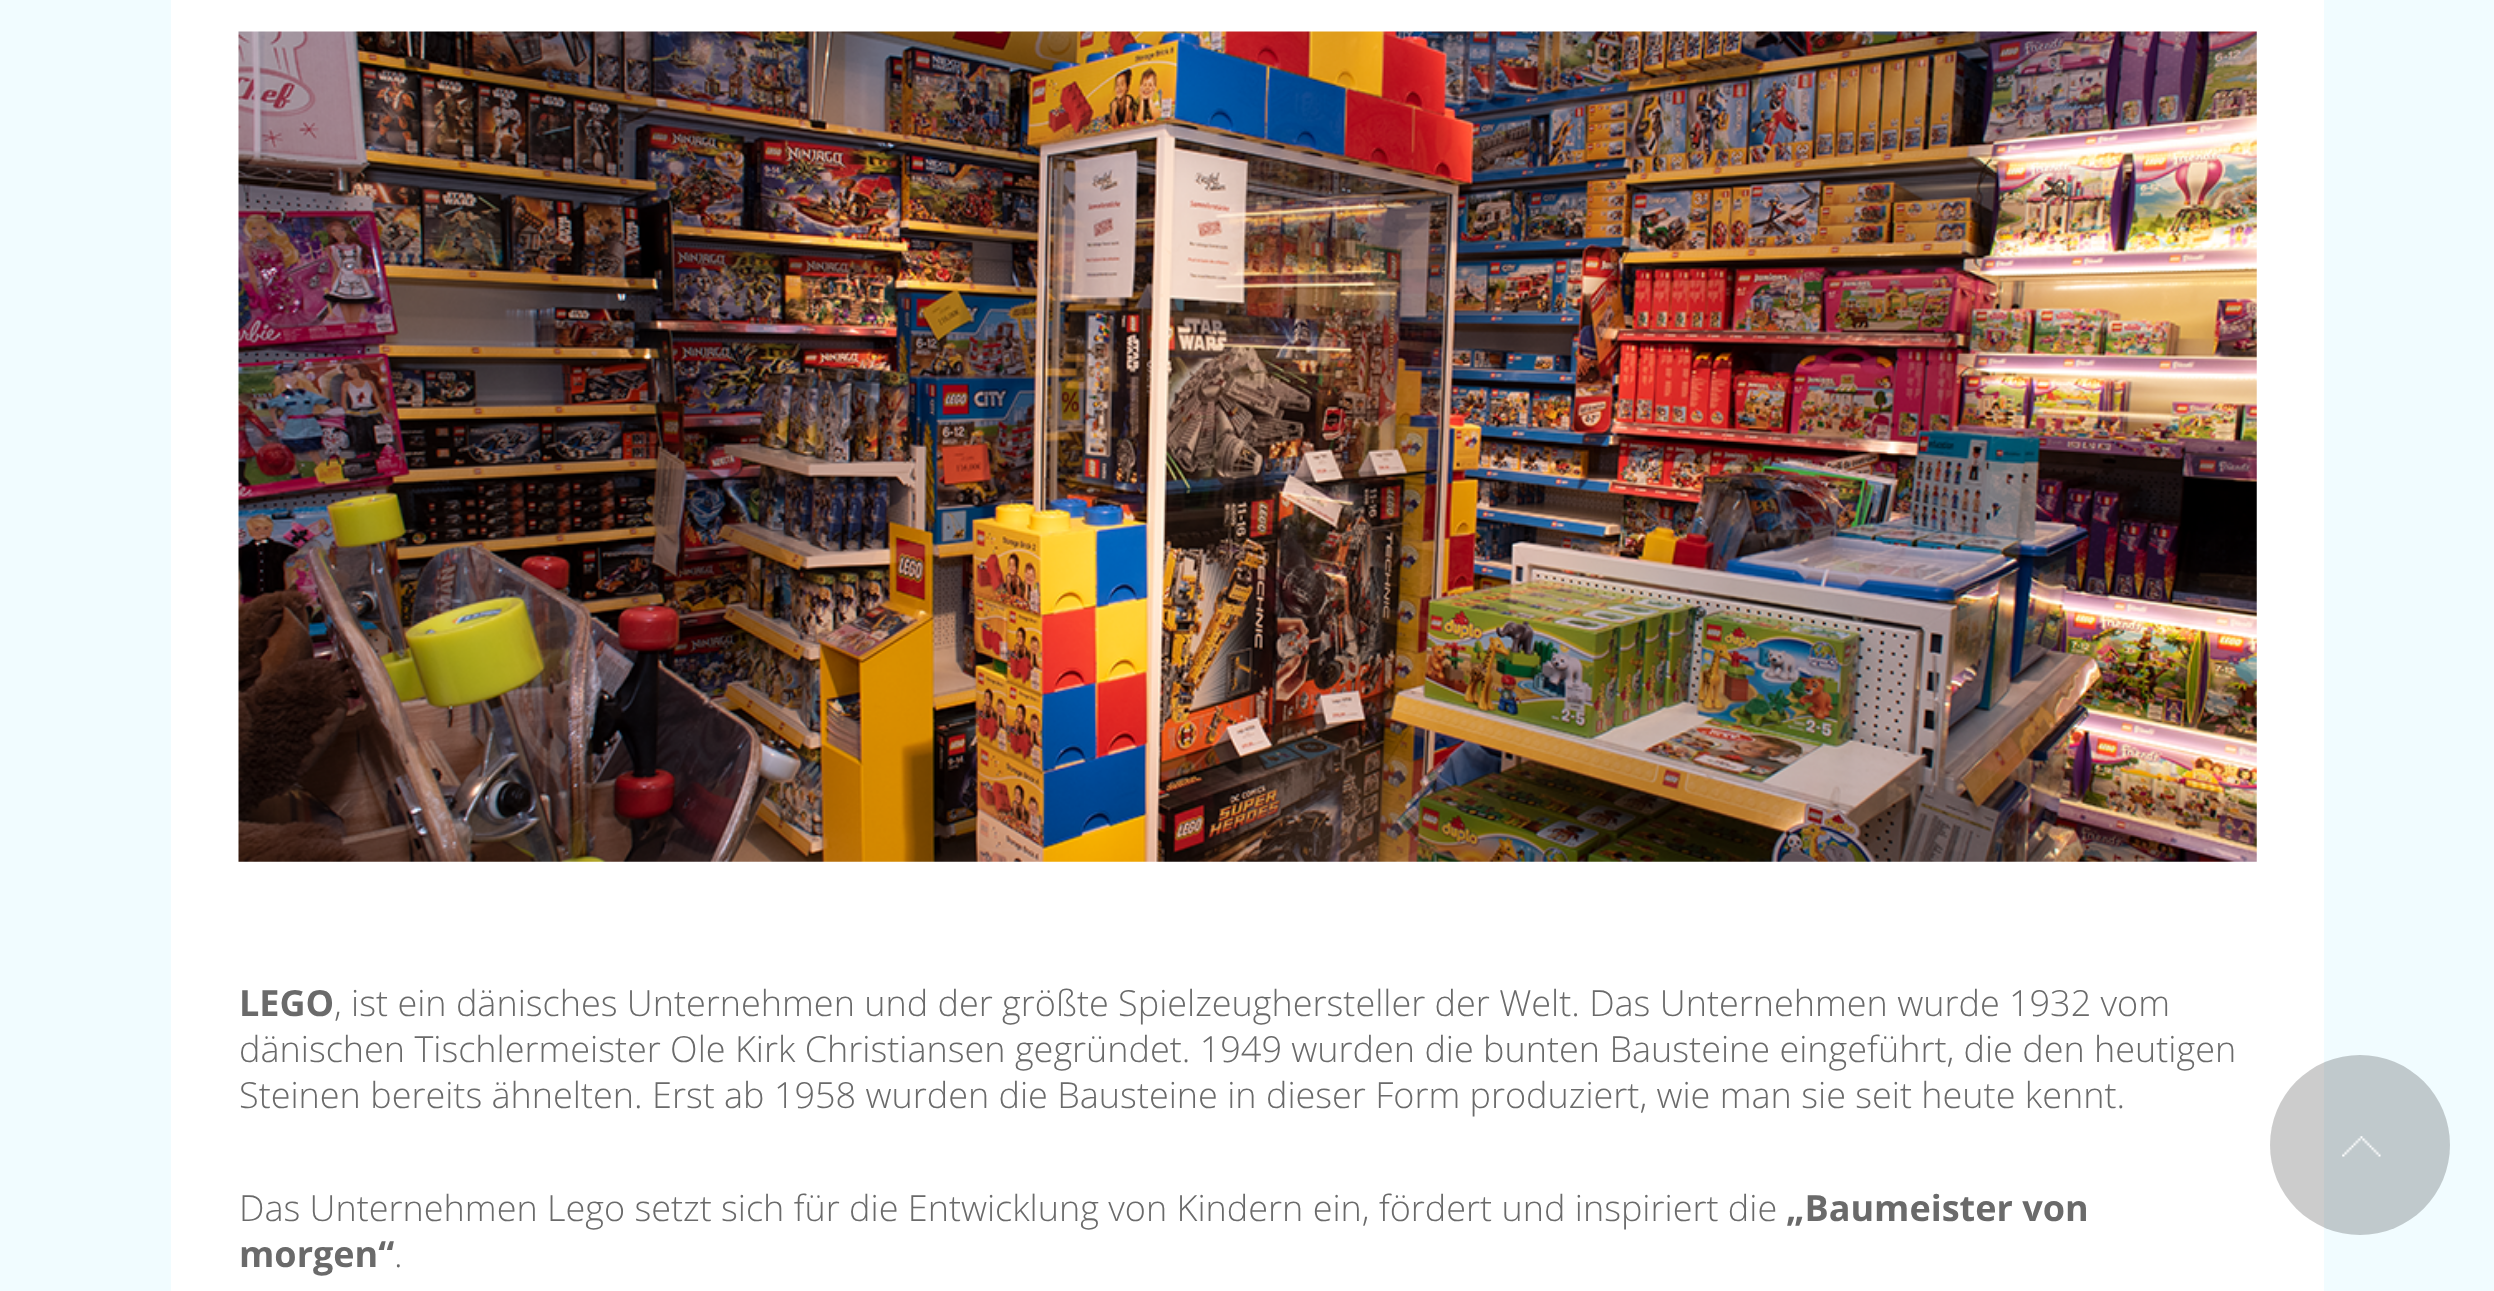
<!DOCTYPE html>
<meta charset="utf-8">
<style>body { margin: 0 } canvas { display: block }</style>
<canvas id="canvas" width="2494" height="1291"></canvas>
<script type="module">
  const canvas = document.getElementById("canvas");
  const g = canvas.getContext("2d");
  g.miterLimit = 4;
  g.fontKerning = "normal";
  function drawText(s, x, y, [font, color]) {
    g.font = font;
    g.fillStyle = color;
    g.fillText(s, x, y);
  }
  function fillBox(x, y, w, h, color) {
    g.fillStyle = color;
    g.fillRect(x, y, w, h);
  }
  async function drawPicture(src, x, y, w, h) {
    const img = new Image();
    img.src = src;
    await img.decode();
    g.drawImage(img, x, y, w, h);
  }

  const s1 = ["bold 36px Open Sans", "#6A6A6A"];
  const s2 = ["300 36px Open Sans", "#6A6A6A"];

  fillBox(0, 0, 2494, 1291, "#F1FCFF");
  fillBox(171, 0, 2153, 1291, "#FFFFFF");
  await drawPicture("pic1.png", 238, 31, 2019, 831);
  drawText("LEGO", 239, 1016, s1);
  drawText(", ist ein dänisches Unternehmen und der größte Spielzeughersteller der Welt. Das Unternehmen wurde 1932 vom", 334, 1016, s2);
  drawText("dänischen Tischlermeister Ole Kirk Christiansen gegründet. 1949 wurden die bunten Bausteine eingeführt, die den heutigen", 239, 1062, s2);
  drawText("Steinen bereits ähnelten. Erst ab 1958 wurden die Bausteine in dieser Form produziert, wie man sie seit heute kennt.", 239, 1108, s2);
  drawText("Das Unternehmen Lego setzt sich für die Entwicklung von Kindern ein, fördert und inspiriert die", 239, 1221, s2);
  drawText("„Baumeister von", 1786, 1221, s1);
  drawText("morgen“", 239, 1267, s1);
  drawText(".", 394, 1267, s2);
  g.fillStyle = "rgba(0, 0, 0, 0.2)";
  g.beginPath();
  g.arc(2360, 1145, 90, 0, Math.PI * 2);
  g.fill();
  await drawPicture("pic2.png", 2342, 1136, 39, 21);
</script>
